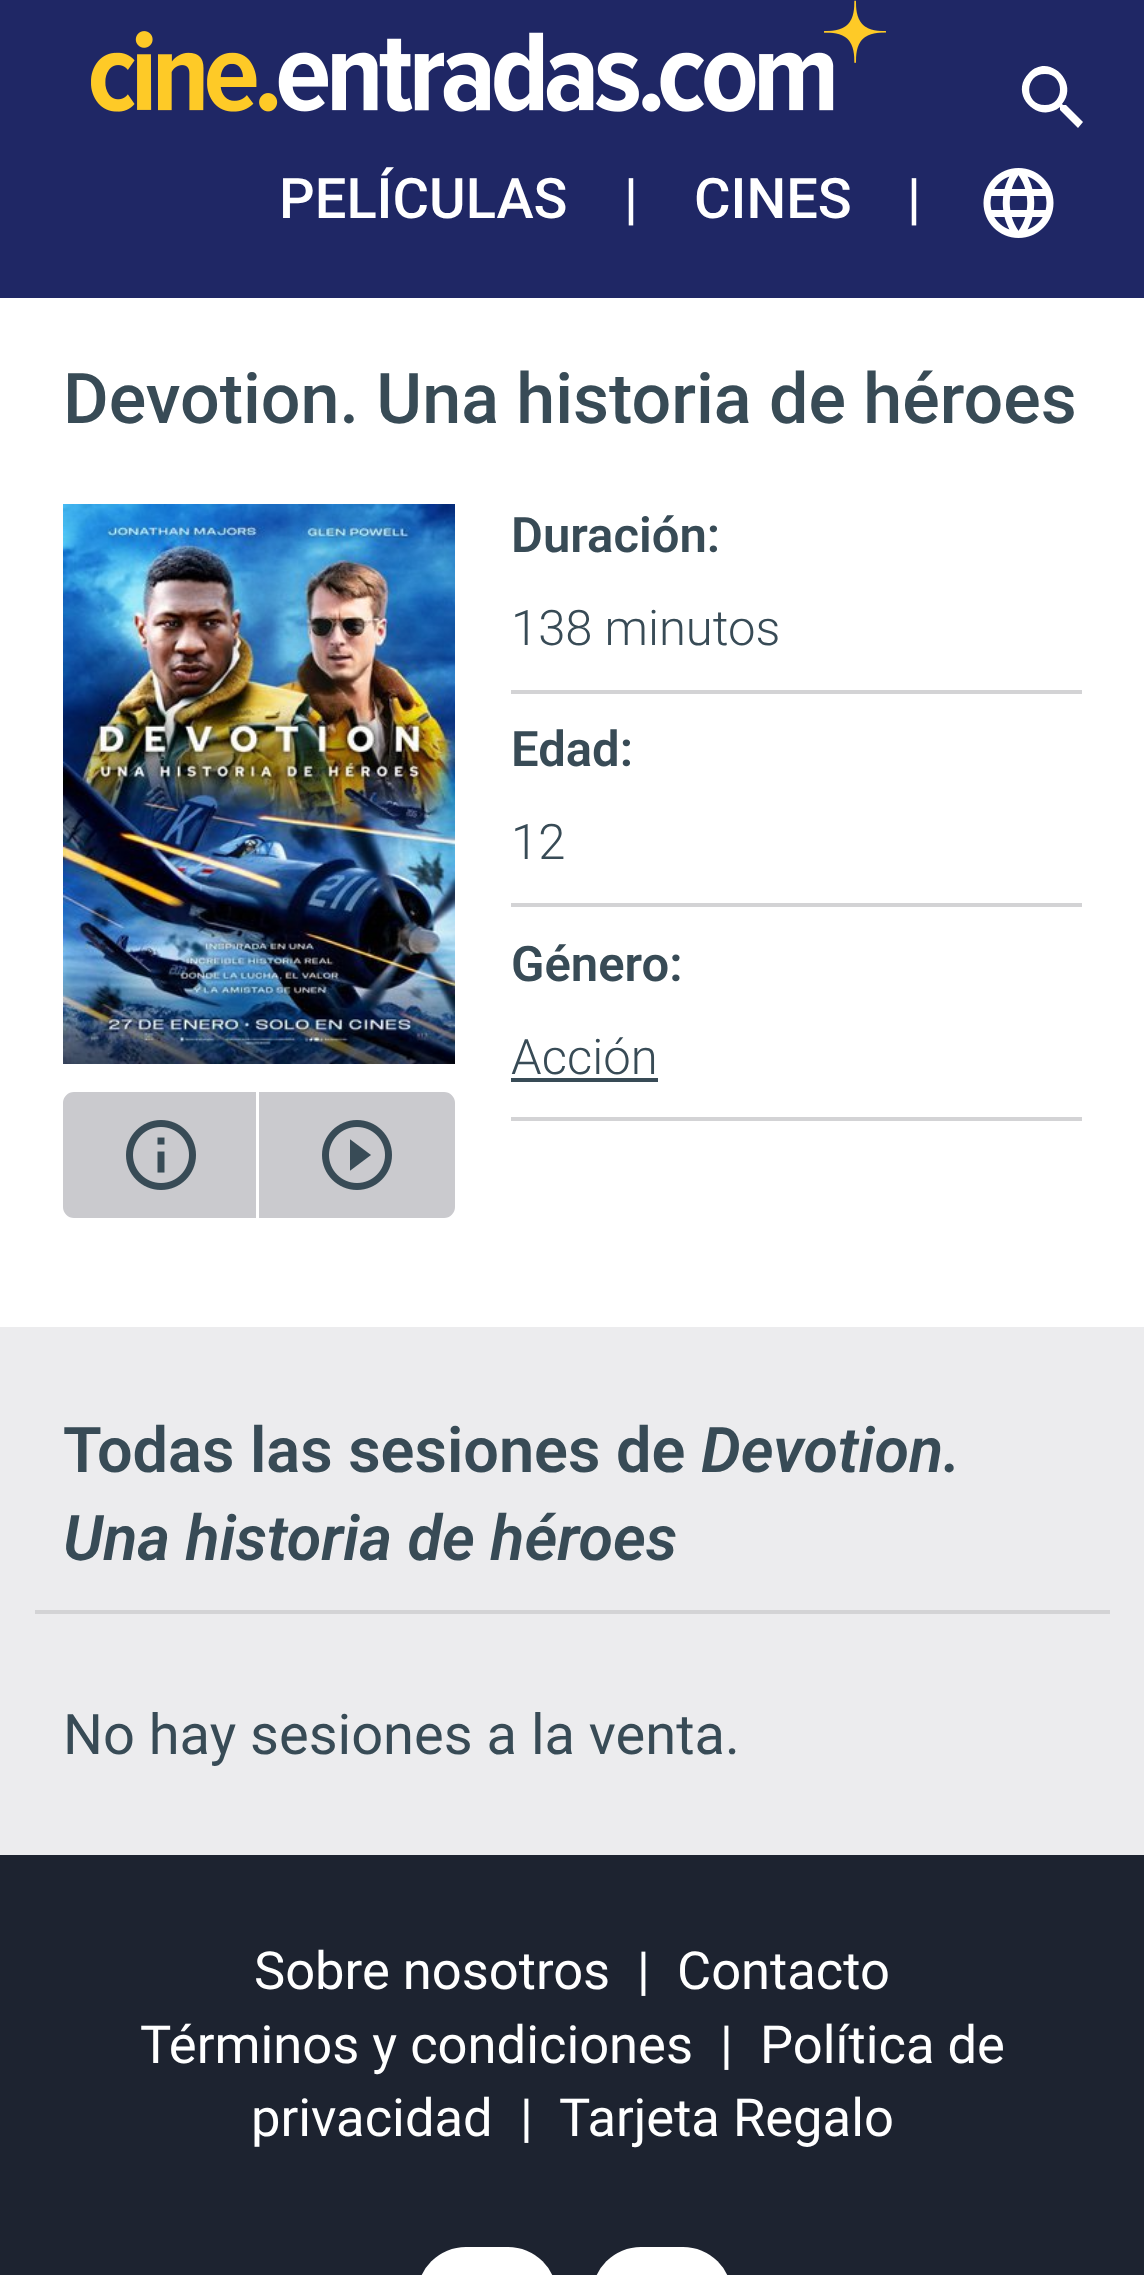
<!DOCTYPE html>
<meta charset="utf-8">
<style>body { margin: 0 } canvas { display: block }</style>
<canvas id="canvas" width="1144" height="2275"></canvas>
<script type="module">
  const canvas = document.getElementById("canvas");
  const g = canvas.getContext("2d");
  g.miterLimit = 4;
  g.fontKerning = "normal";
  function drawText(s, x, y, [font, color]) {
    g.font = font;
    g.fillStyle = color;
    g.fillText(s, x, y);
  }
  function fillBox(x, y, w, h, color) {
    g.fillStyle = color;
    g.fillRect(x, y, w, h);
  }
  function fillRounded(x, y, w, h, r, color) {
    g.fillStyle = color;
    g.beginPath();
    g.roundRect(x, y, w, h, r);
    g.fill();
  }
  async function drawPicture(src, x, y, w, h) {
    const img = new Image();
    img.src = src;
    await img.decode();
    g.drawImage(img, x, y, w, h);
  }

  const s1 = ["500 56px Roboto", "#FFFFFF"];
  const s2 = ["500 70px Roboto", "#384B56"];
  const s3 = ["600 49px Roboto", "#384B56"];
  const s4 = ["300 49px Roboto", "#384B56"];
  const s5 = ["600 63px Roboto", "#384B56"];
  const s6 = ["italic 600 63px Roboto", "#384B56"];
  const s7 = ["56px Roboto", "#384B56"];
  const s8 = ["52.5px Roboto", "#FFFFFF"];

  fillBox(0, 0, 1144, 2275, "#FFFFFF");
  fillBox(0, 0, 1144, 298, "#1F2765");
  await drawPicture("pic1.png", 91, 0, 795, 112);
  g.fillStyle = "#FFFFFF";
  g.beginPath();
  g.moveTo(1066, 105);
  g.lineTo(1063, 105);
  g.lineTo(1062, 104);
  g.bezierCurveTo(1080, 83, 1049, 52, 1029, 73);
  g.bezierCurveTo(1008, 94, 1038, 125, 1060, 107);
  g.lineTo(1060, 110);
  g.lineTo(1078, 128);
  g.lineTo(1083, 122);
  g.closePath();
  g.moveTo(1045, 105);
  g.bezierCurveTo(1024, 105, 1024, 74, 1045, 74);
  g.bezierCurveTo(1065, 74, 1065, 105, 1045, 105);
  g.closePath();
  g.fill();
  drawText("PELÍCULAS", 279, 218, s1);
  drawText("|", 624, 218, s1);
  drawText("CINES", 694, 218, s1);
  drawText("|", 907, 218, s1);
  await drawPicture("pic2.png", 983, 168, 71, 70);
  drawText("Devotion. Una historia de héroes", 63, 423, s2);
  await drawPicture("pic3.png", 63, 504, 392, 560);
  g.fillStyle = "#CACACE";
  g.beginPath();
  g.roundRect(65, 1094, 189, 122, [9, 0, 0, 9]);
  g.fill();
  g.strokeStyle = "#CACACE";
  g.lineWidth = 4;
  g.stroke();
  await drawPicture("pic4.png", 126, 1120, 70, 70);
  g.beginPath();
  g.roundRect(261, 1094, 192, 122, [0, 9, 9, 0]);
  g.fill();
  g.stroke();
  await drawPicture("pic5.png", 322, 1120, 70, 70);
  drawText("Duración:", 511, 552, s3);
  fillBox(511, 690, 571, 4, "#D3D3D5");
  drawText("138 minutos", 511, 645, s4);
  drawText("Edad:", 511, 766, s3);
  fillBox(511, 903, 571, 4, "#D3D3D5");
  drawText("12", 511, 859, s4);
  drawText("Género:", 511, 981, s3);
  fillBox(511, 1117, 571, 4, "#D3D3D5");
  drawText("Acción", 511, 1074, s4);
  fillBox(511, 1078, 147, 4, "#384B56");
  fillBox(0, 1327, 1144, 528, "#ECECEE");
  fillBox(35, 1610, 1075, 4, "#D3D3D5");
  drawText("Todas las sesiones de", 63, 1472, s5);
  drawText("Devotion.", 701, 1472, s6);
  drawText("Una historia de héroes", 63, 1560, s6);
  drawText("No hay sesiones a la venta.", 63, 1754, s7);
  fillBox(0, 1855, 1144, 420, "#1D2330");
  drawText("Sobre nosotros", 254, 1989, s8);
  drawText("|", 637, 1989, s8);
  drawText("Contacto", 677, 1989, s8);
  drawText("Términos y condiciones", 140, 2063, s8);
  drawText("|", 720, 2063, s8);
  drawText("Política de", 760, 2063, s8);
  drawText("privacidad", 251, 2136, s8);
  drawText("|", 520, 2136, s8);
  drawText("Tarjeta Regalo", 559, 2136, s8);
  fillRounded(417, 2247, 140, 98, 70, "#FFFFFF");
  fillRounded(592, 2247, 140, 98, 70, "#FFFFFF");
</script>
